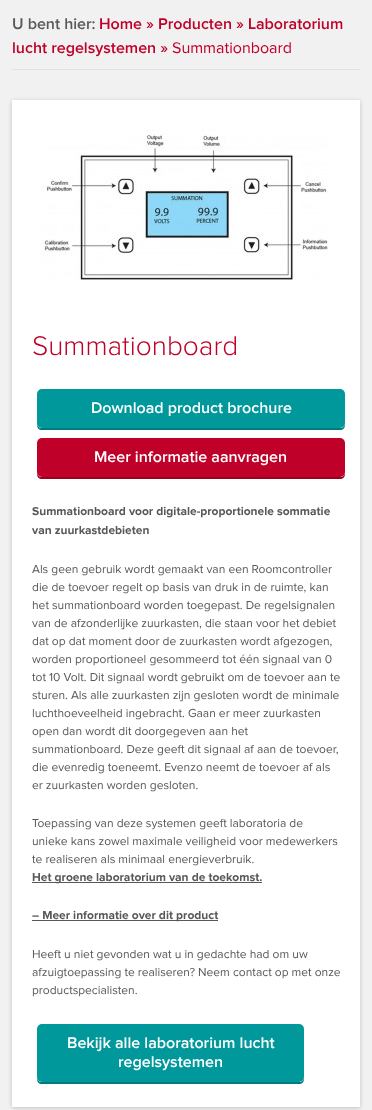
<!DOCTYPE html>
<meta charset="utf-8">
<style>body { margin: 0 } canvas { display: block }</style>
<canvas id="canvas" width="372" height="1110"></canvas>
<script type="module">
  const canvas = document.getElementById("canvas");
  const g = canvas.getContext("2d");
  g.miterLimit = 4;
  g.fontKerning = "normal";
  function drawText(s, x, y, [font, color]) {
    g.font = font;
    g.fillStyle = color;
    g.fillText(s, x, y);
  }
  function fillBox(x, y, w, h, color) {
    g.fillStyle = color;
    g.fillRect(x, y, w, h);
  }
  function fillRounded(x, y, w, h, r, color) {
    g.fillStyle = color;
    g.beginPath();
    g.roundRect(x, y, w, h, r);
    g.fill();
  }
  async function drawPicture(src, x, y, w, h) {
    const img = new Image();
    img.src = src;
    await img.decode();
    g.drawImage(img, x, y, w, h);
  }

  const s1 = ["600 16px Proxima Nova", "#58585A"];
  const s2 = ["600 16px Proxima Nova", "#BF0029"];
  const s3 = ["16px Proxima Nova", "#BF0029"];
  const s4 = ["300 28px Proxima Nova", "#BF0029"];
  const s5 = ["600 16px Proxima Nova", "#FFFFFF"];
  const s6 = ["bold 12px Proxima Nova", "#58585A"];
  const s7 = ["12px Proxima Nova", "#58585A"];

  fillBox(0, 0, 372, 1110, "#F1F1F1");
  fillBox(12, 69, 348, 1, "#E1E1E1");
  drawText("U bent hier:", 12, 29, s1);
  drawText("Home » Producten » Laboratorium", 99, 29, s2);
  drawText("lucht regelsystemen »", 12, 53, s2);
  drawText("Summationboard", 172, 53, s3);
  g.fillStyle = "rgba(0, 0, 0, 0.2)";
  g.filter = "blur(2px)";
  g.beginPath();
  g.rect(12, 101, 348, 1007);
  g.fill();
  g.filter = "none";
  fillBox(12, 100, 348, 1007, "#FFFFFF");
  await drawPicture("pic1.png", 41, 129, 288, 151);
  drawText("Summationboard", 32, 355, s4);
  g.fillStyle = "#007B80";
  g.beginPath();
  g.moveTo(37, 423);
  g.lineTo(37, 425);
  g.bezierCurveTo(37, 428, 39, 430, 42, 430);
  g.lineTo(340, 430);
  g.bezierCurveTo(343, 430, 345, 428, 345, 425);
  g.lineTo(345, 423);
  g.bezierCurveTo(345, 426, 343, 428, 340, 428);
  g.lineTo(42, 428);
  g.bezierCurveTo(39, 428, 37, 426, 37, 423);
  g.closePath();
  g.fill();
  fillRounded(37, 389, 308, 39, 5, "#00989B");
  drawText("Download product brochure", 91, 413, s5);
  g.fillStyle = "#9B0021";
  g.beginPath();
  g.moveTo(37, 472);
  g.lineTo(37, 474);
  g.bezierCurveTo(37, 477, 39, 479, 42, 479);
  g.lineTo(340, 479);
  g.bezierCurveTo(343, 479, 345, 477, 345, 474);
  g.lineTo(345, 472);
  g.bezierCurveTo(345, 475, 343, 477, 340, 477);
  g.lineTo(42, 477);
  g.bezierCurveTo(39, 477, 37, 475, 37, 472);
  g.closePath();
  g.fill();
  fillRounded(37, 438, 308, 39, 5, "#BF0029");
  drawText("Meer informatie aanvragen", 94, 462, s5);
  drawText("Summationboard voor digitale-proportionele sommatie", 32, 515, s6);
  drawText("van zuurkastdebieten", 32, 534, s6);
  drawText("Als geen gebruik wordt gemaakt van een Roomcontroller", 32, 573, s7);
  drawText("die de toevoer regelt op basis van druk in de ruimte, kan", 32, 591, s7);
  drawText("het summationboard worden toegepast. De regelsignalen", 32, 609, s7);
  drawText("van de afzonderlijke zuurkasten, die staan voor het debiet", 32, 627, s7);
  drawText("dat op dat moment door de zuurkasten wordt afgezogen,", 32, 645, s7);
  drawText("worden proportioneel gesommeerd tot één signaal van 0", 32, 663, s7);
  drawText("tot 10 Volt. Dit signaal wordt gebruikt om de toevoer aan te", 32, 681, s7);
  drawText("sturen. Als alle zuurkasten zijn gesloten wordt de minimale", 32, 699, s7);
  drawText("luchthoeveelheid ingebracht. Gaan er meer zuurkasten", 32, 717, s7);
  drawText("open dan wordt dit doorgegeven aan het", 32, 735, s7);
  drawText("summationboard. Deze geeft dit signaal af aan de toevoer,", 32, 753, s7);
  drawText("die evenredig toeneemt. Evenzo neemt de toevoer af als", 32, 771, s7);
  drawText("er zuurkasten worden gesloten.", 32, 789, s7);
  drawText("Toepassing van deze systemen geeft laboratoria de", 32, 827, s7);
  drawText("unieke kans zowel maximale veiligheid voor medewerkers", 32, 845, s7);
  drawText("te realiseren als minimaal energieverbruik.", 32, 863, s7);
  fillBox(32, 882, 230, 1, "#58585A");
  drawText("Het groene laboratorium van de toekomst.", 32, 881, s6);
  fillBox(32, 920, 186, 1, "#58585A");
  drawText("– Meer informatie over dit product", 32, 919, s6);
  drawText("Heeft u niet gevonden wat u in gedachte had om uw", 32, 958, s7);
  drawText("afzuigtoepassing te realiseren? Neem contact op met onze", 32, 976, s7);
  drawText("productspecialisten.", 32, 994, s7);
  g.fillStyle = "#007B80";
  g.beginPath();
  g.moveTo(37, 1077);
  g.lineTo(37, 1079);
  g.bezierCurveTo(37, 1082, 39, 1084, 42, 1084);
  g.lineTo(299, 1084);
  g.bezierCurveTo(302, 1084, 304, 1082, 304, 1079);
  g.lineTo(304, 1077);
  g.bezierCurveTo(304, 1080, 302, 1082, 299, 1082);
  g.lineTo(42, 1082);
  g.bezierCurveTo(39, 1082, 37, 1080, 37, 1077);
  g.closePath();
  g.fill();
  fillRounded(37, 1024, 267, 58, 5, "#00989B");
  drawText("Bekijk alle laboratorium lucht", 67, 1048, s5);
  drawText("regelsystemen", 118, 1067, s5);
</script>
